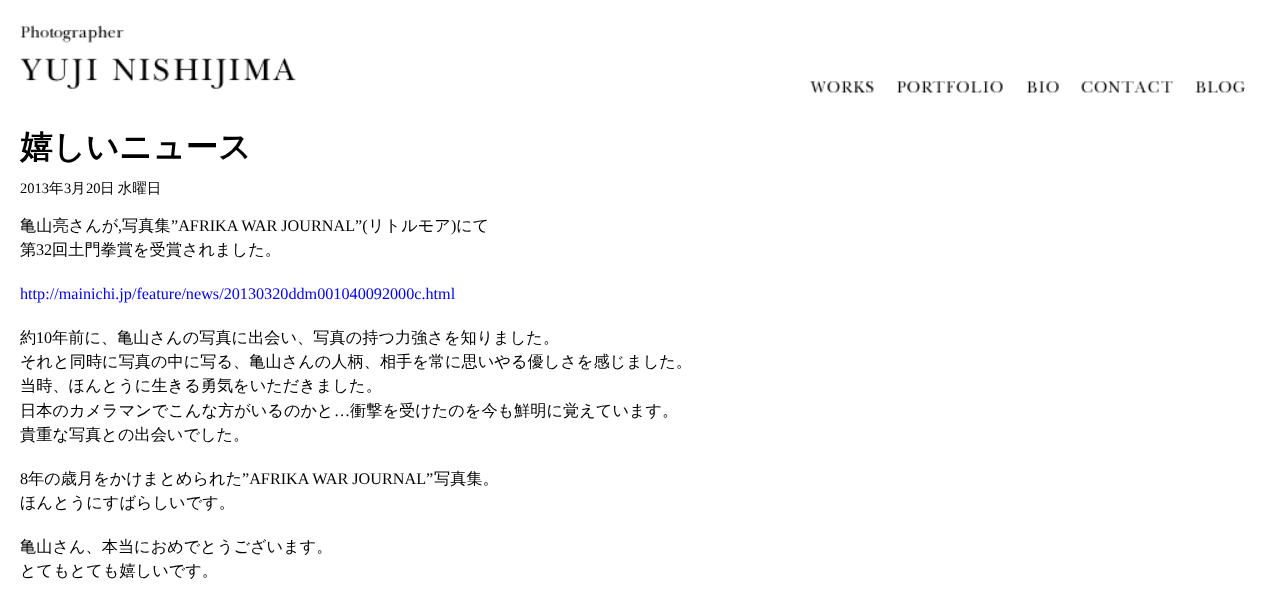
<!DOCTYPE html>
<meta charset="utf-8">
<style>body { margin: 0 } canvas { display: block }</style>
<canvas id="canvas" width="1265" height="594"></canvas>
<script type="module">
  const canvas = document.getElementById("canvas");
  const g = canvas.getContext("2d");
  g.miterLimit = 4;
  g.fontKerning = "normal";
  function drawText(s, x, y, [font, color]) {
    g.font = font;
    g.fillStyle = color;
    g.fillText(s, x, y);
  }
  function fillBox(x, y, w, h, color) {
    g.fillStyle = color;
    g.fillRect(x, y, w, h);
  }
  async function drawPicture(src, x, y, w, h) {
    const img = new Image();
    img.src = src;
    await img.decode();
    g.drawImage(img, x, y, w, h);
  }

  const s1 = ["bold 32.5px WenQuanYi Zen Hei", "#000000"];
  const s2 = ["14.5px Liberation Serif", "#000000"];
  const s3 = ["500 14.5px WenQuanYi Zen Hei", "#000000"];
  const s4 = ["500 16.2px WenQuanYi Zen Hei", "#000000"];
  const s5 = ["16.2px Liberation Serif", "#000000"];
  const s6 = ["16.2px Liberation Serif", "#0000EE"];

  fillBox(0, 0, 1265, 594, "#FFFFFF");
  await drawPicture("pic1.png", 20, 25, 277, 64);
  await drawPicture("pic2.png", 810, 81, 64, 12);
  await drawPicture("pic3.png", 896, 81, 107, 12);
  await drawPicture("pic4.png", 1026, 81, 33, 12);
  await drawPicture("pic5.png", 1081, 81, 92, 12);
  await drawPicture("pic6.png", 1195, 81, 50, 12);
  drawText("嬉しいニュース", 20, 158, s1);
  drawText("2013", 20, 193, s2);
  drawText("年", 49, 193, s3);
  drawText("3", 64, 193, s2);
  drawText("月", 71, 193, s3);
  drawText("20", 86, 193, s2);
  g.wordSpacing = "-1px";
  drawText("日 水曜日", 100, 193, s3);
  g.wordSpacing = "0px";
  drawText("亀山亮さんが", 20, 231, s4);
  drawText(",", 118, 231, s5);
  drawText("写真集", 122, 231, s4);
  drawText("”AFRIKA WAR JOURNAL”(", 171, 231, s5);
  drawText("リトルモア", 368, 231, s4);
  drawText(")", 451, 231, s5);
  drawText("にて", 456, 231, s4);
  drawText("第", 20, 255, s4);
  drawText("32", 36, 255, s5);
  drawText("回土門拳賞を受賞されました。", 52, 255, s4);
  drawText("http://mainichi.jp/feature/news/20130320ddm001040092000c.html", 20, 299, s6);
  drawText("約", 20, 343, s4);
  drawText("10", 36, 343, s5);
  drawText("年前に、亀山さんの写真に出会い、写真の持つ力強さを知りました。", 52, 343, s4);
  drawText("それと同時に写真の中に写る、亀山さんの人柄、相手を常に思いやる優しさを感じました。", 20, 367, s4);
  drawText("当時、ほんとうに生きる勇気をいただきました。", 20, 391, s4);
  drawText("日本のカメラマンでこんな方がいるのかと", 20, 416, s4);
  drawText("…", 334, 416, s5);
  drawText("衝撃を受けたのを今も鮮明に覚えています。", 350, 416, s4);
  drawText("貴重な写真との出会いでした。", 20, 440, s4);
  drawText("8", 20, 484, s5);
  drawText("年の歳月をかけまとめられた", 28, 484, s4);
  drawText("”AFRIKA WAR JOURNAL”", 242, 484, s5);
  drawText("写真集。", 434, 484, s4);
  drawText("ほんとうにすばらしいです。", 20, 508, s4);
  drawText("亀山さん、本当におめでとうございます。", 20, 552, s4);
  drawText("とてもとても嬉しいです。", 20, 576, s4);
</script>
